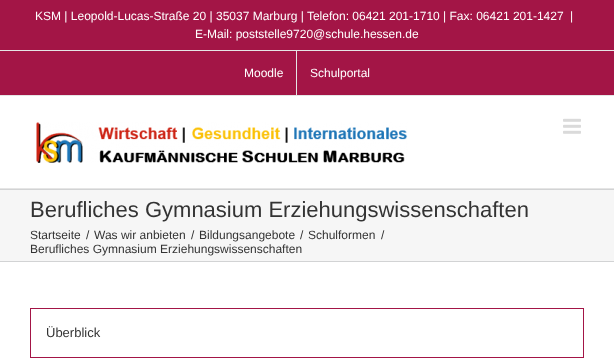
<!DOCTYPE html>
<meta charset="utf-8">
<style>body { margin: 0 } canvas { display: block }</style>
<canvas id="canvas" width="614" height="359"></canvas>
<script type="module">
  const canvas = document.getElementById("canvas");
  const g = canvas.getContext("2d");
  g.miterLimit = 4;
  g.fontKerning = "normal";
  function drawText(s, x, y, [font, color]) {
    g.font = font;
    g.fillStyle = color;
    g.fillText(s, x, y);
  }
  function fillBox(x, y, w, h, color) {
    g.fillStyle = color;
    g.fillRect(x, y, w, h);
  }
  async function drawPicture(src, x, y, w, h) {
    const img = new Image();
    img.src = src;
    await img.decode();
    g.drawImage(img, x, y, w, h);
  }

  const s1 = ["12px Liberation Sans", "#FFFFFF"];
  const s2 = ["22px Liberation Sans", "#333333"];
  const s3 = ["12px Liberation Sans", "#333333"];
  const s4 = ["13px Liberation Sans", "#333333"];

  fillBox(0, 0, 614, 359, "#FFFFFF");
  fillBox(0, 0, 614, 95, "#A31546");
  fillBox(0, 95, 614, 1, "#E5E5E5");
  fillBox(0, 50, 614, 1, "#E5E5E5");
  drawText("KSM | Leopold-Lucas-Straße 20 | 35037 Marburg | Telefon: 06421 201-1710 | Fax: 06421 201-1427", 35, 20, s1);
  drawText("|", 570, 20, s1);
  drawText("E-Mail: poststelle9720@schule.hessen.de", 195, 38, s1);
  drawText("Moodle", 244, 77, s1);
  fillBox(296, 51, 1, 44, "#E5E5E5");
  drawText("Schulportal", 310, 77, s1);
  fillBox(0, 188, 614, 1, "#E5E5E5");
  await drawPicture("pic1.png", 36, 122, 372, 41);
  await drawPicture("pic2.png", 563, 118, 18, 16);
  fillBox(0, 190, 614, 71, "#F6F6F6");
  fillBox(0, 189, 614, 1, "#D2D3D4");
  fillBox(0, 261, 614, 1, "#D2D3D4");
  drawText("Berufliches Gymnasium Erziehungswissenschaften", 30, 217, s2);
  drawText("Startseite", 30, 239, s3);
  drawText("/", 86, 239, s3);
  drawText("Was wir anbieten", 94, 239, s3);
  drawText("/", 191, 239, s3);
  drawText("Bildungsangebote", 199, 239, s3);
  drawText("/", 300, 239, s3);
  drawText("Schulformen", 308, 239, s3);
  drawText("/", 381, 239, s3);
  drawText("Berufliches Gymnasium Erziehungswissenschaften", 30, 253, s3);
  g.strokeStyle = "#A31546";
  g.strokeRect(30.5, 308.5, 553, 49);
  drawText("Überblick", 46, 337, s4);
</script>
